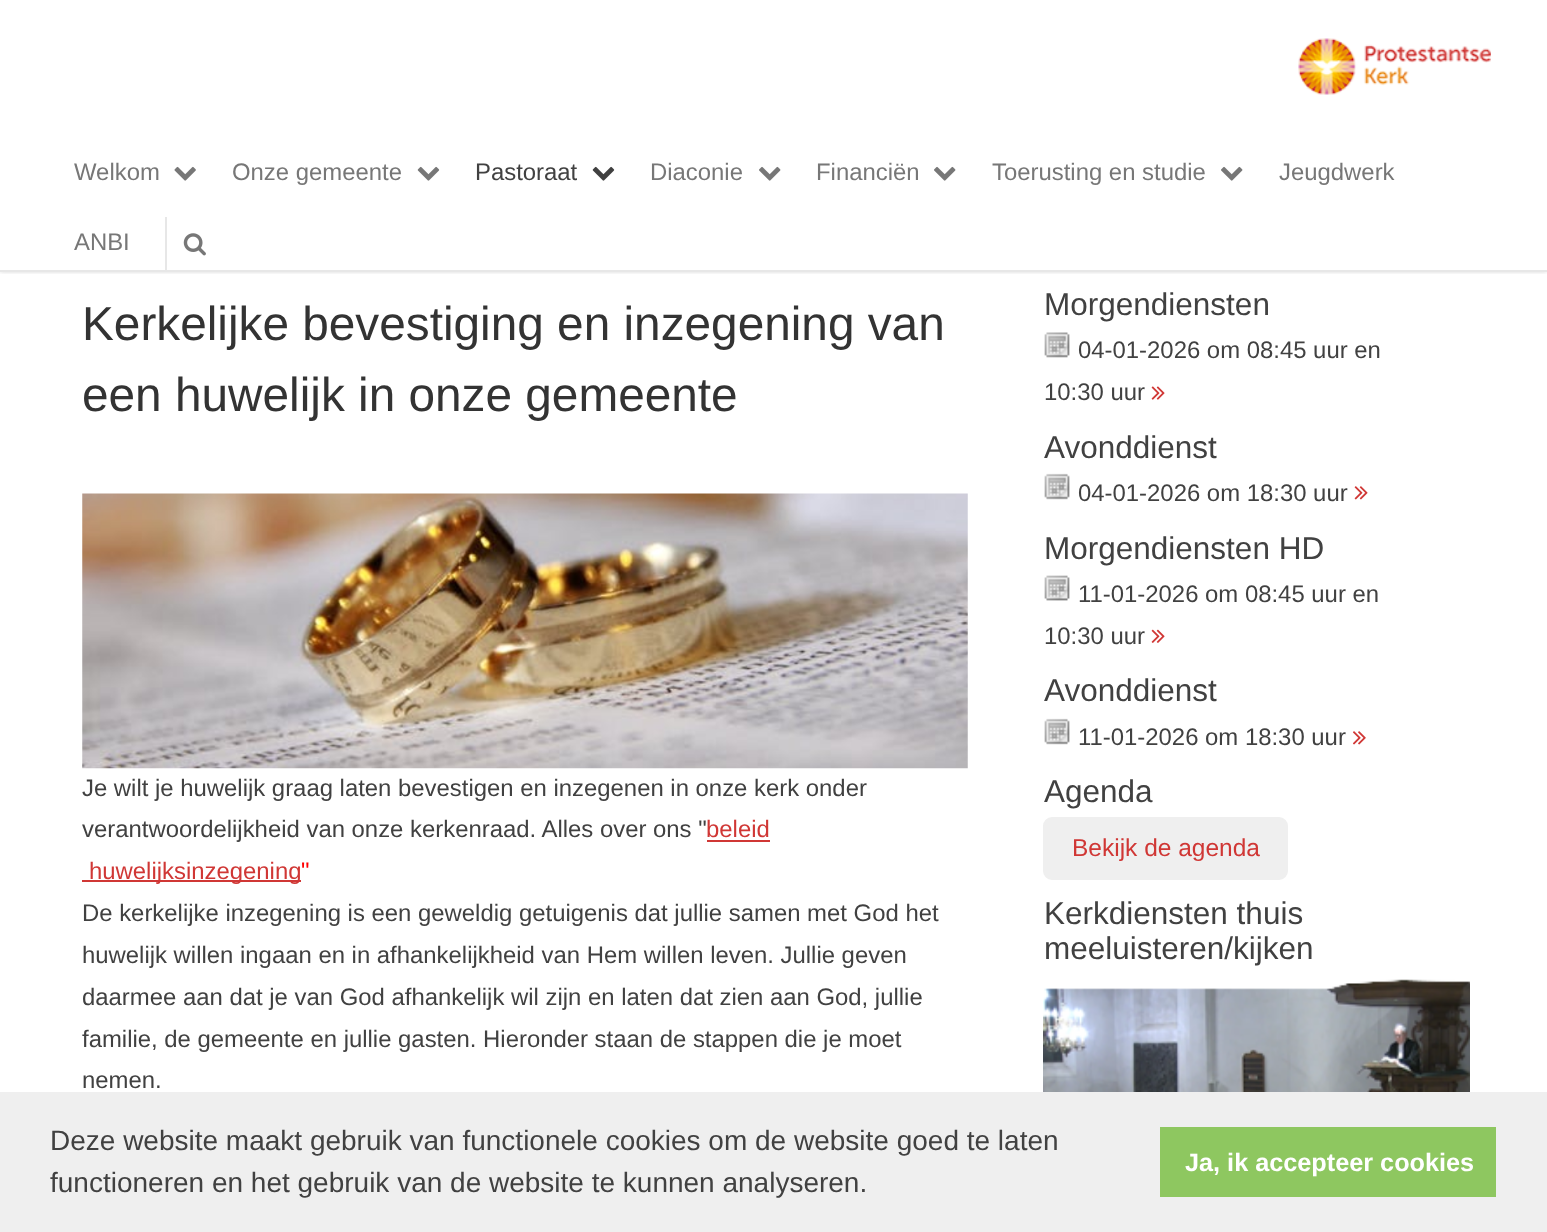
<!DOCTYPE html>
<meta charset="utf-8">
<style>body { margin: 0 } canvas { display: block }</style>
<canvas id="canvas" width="1547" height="1232"></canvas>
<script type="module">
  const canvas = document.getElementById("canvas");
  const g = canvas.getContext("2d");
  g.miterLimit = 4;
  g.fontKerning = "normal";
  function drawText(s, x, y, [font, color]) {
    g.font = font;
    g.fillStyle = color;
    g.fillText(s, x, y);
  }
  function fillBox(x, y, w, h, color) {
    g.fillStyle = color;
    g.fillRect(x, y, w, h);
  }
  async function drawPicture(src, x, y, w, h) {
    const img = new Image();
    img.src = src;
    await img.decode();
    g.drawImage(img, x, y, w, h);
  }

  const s1 = ["23.9px Liberation Sans", "#777777"];
  const s2 = ["23.9px Liberation Sans", "#414141"];
  const s3 = ["47.75px Liberation Sans", "#333333"];
  const s4 = ["23.9px Liberation Sans", "#D03735"];
  const s5 = ["23.9px Liberation Sans", "#FF0000"];
  const s6 = ["31.5px Liberation Sans", "#414141"];
  const s7 = ["24.5px Liberation Sans", "#D03735"];
  const s8 = ["28px Liberation Sans", "#414141"];
  const s9 = ["bold 25.25px Liberation Sans", "#FFFFFF"];

  fillBox(0, 0, 1547, 1232, "#FFFFFF");
  g.save();
  g.beginPath();
  g.rect(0, 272, 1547, 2);
  g.clip();
  g.fillStyle = "rgba(0, 0, 0, 0.22)";
  g.filter = "blur(2.5px)";
  g.beginPath();
  g.rect(0, 0, 1547, 271);
  g.fill();
  g.filter = "none";
  g.restore();
  fillBox(0, 270, 1547, 2, "#E7E7E7");
  await drawPicture("pic1.png", 1298, 38, 193, 57);
  drawText("Welkom", 74, 180, s1);
  await drawPicture("pic2.png", 174, 166, 22, 15);
  drawText("Onze gemeente", 232, 180, s1);
  await drawPicture("pic3.png", 417, 166, 23, 15);
  drawText("Pastoraat", 475, 180, s2);
  await drawPicture("pic4.png", 592, 166, 23, 15);
  drawText("Diaconie", 650, 180, s1);
  await drawPicture("pic5.png", 759, 166, 22, 15);
  drawText("Financiën", 816, 180, s1);
  await drawPicture("pic5.png", 934, 166, 22, 15);
  drawText("Toerusting en studie", 992, 180, s1);
  await drawPicture("pic5.png", 1221, 166, 22, 15);
  drawText("Jeugdwerk", 1279, 180, s1);
  drawText("ANBI", 74, 250, s1);
  fillBox(165, 217, 2, 53, "#E7E7E7");
  await drawPicture("pic6.png", 183, 233, 23, 23);
  drawText("Kerkelijke bevestiging en inzegening van", 82, 340, s3);
  drawText("een huwelijk in onze gemeente", 82, 411, s3);
  await drawPicture("pic7.png", 82, 493, 886, 276);
  drawText("Je wilt je huwelijk graag laten bevestigen en inzegenen in onze kerk onder", 82, 796, s2);
  drawText("verantwoordelijkheid van onze kerkenraad. Alles over ons \"", 82, 837, s2);
  fillBox(707, 840, 63, 2, "#D03735");
  drawText("beleid", 706, 837, s4);
  fillBox(82, 880, 219, 2, "#D03735");
  drawText("huwelijksinzegening", 89, 879, s4);
  drawText("\"", 301, 879, s5);
  drawText("De kerkelijke inzegening is een geweldig getuigenis dat jullie samen met God het", 82, 921, s2);
  drawText("huwelijk willen ingaan en in afhankelijkheid van Hem willen leven. Jullie geven", 82, 963, s2);
  drawText("daarmee aan dat je van God afhankelijk wil zijn en laten dat zien aan God, jullie", 82, 1005, s2);
  drawText("familie, de gemeente en jullie gasten. Hieronder staan de stappen die je moet", 82, 1047, s2);
  drawText("nemen.", 82, 1088, s2);
  drawText("Morgendiensten", 1044, 315, s6);
  await drawPicture("pic8.png", 1044, 332, 26, 26);
  drawText("04-01-2026 om 08:45 uur en", 1078, 358, s2);
  drawText("10:30 uur", 1044, 400, s2);
  await drawPicture("pic9.png", 1151, 386, 14, 14);
  drawText("Avonddienst", 1044, 458, s6);
  await drawPicture("pic10.png", 1044, 473, 26, 27);
  drawText("04-01-2026 om 18:30 uur", 1078, 501, s2);
  await drawPicture("pic11.png", 1354, 486, 14, 14);
  drawText("Morgendiensten HD", 1044, 559, s6);
  await drawPicture("pic12.png", 1044, 575, 26, 26);
  drawText("11-01-2026 om 08:45 uur en", 1078, 602, s2);
  drawText("10:30 uur", 1044, 644, s2);
  await drawPicture("pic13.png", 1151, 629, 14, 14);
  drawText("Avonddienst", 1044, 701, s6);
  await drawPicture("pic10.png", 1044, 718, 26, 27);
  drawText("11-01-2026 om 18:30 uur", 1078, 745, s2);
  await drawPicture("pic14.png", 1353, 731, 13, 14);
  drawText("Agenda", 1044, 802, s6);
  g.fillStyle = "#EFEFEF";
  g.beginPath();
  g.roundRect(1044, 818, 243, 61, 8);
  g.fill();
  g.strokeStyle = "#EFEFEF";
  g.lineWidth = 2;
  g.stroke();
  drawText("Bekijk de agenda", 1072, 856, s7);
  drawText("Kerkdiensten thuis", 1044, 924, s6);
  drawText("meeluisteren/kijken", 1044, 959, s6);
  await drawPicture("pic15.png", 1043, 979, 427, 113);
  fillBox(0, 1092, 1547, 140, "#EFEFEF");
  drawText("Deze website maakt gebruik van functionele cookies om de website goed te laten", 50, 1150, s8);
  drawText("functioneren en het gebruik van de website te kunnen analyseren.", 50, 1192, s8);
  fillBox(1160, 1127, 336, 70, "#8EC760");
  drawText("Ja, ik accepteer cookies", 1185, 1171, s9);
</script>
